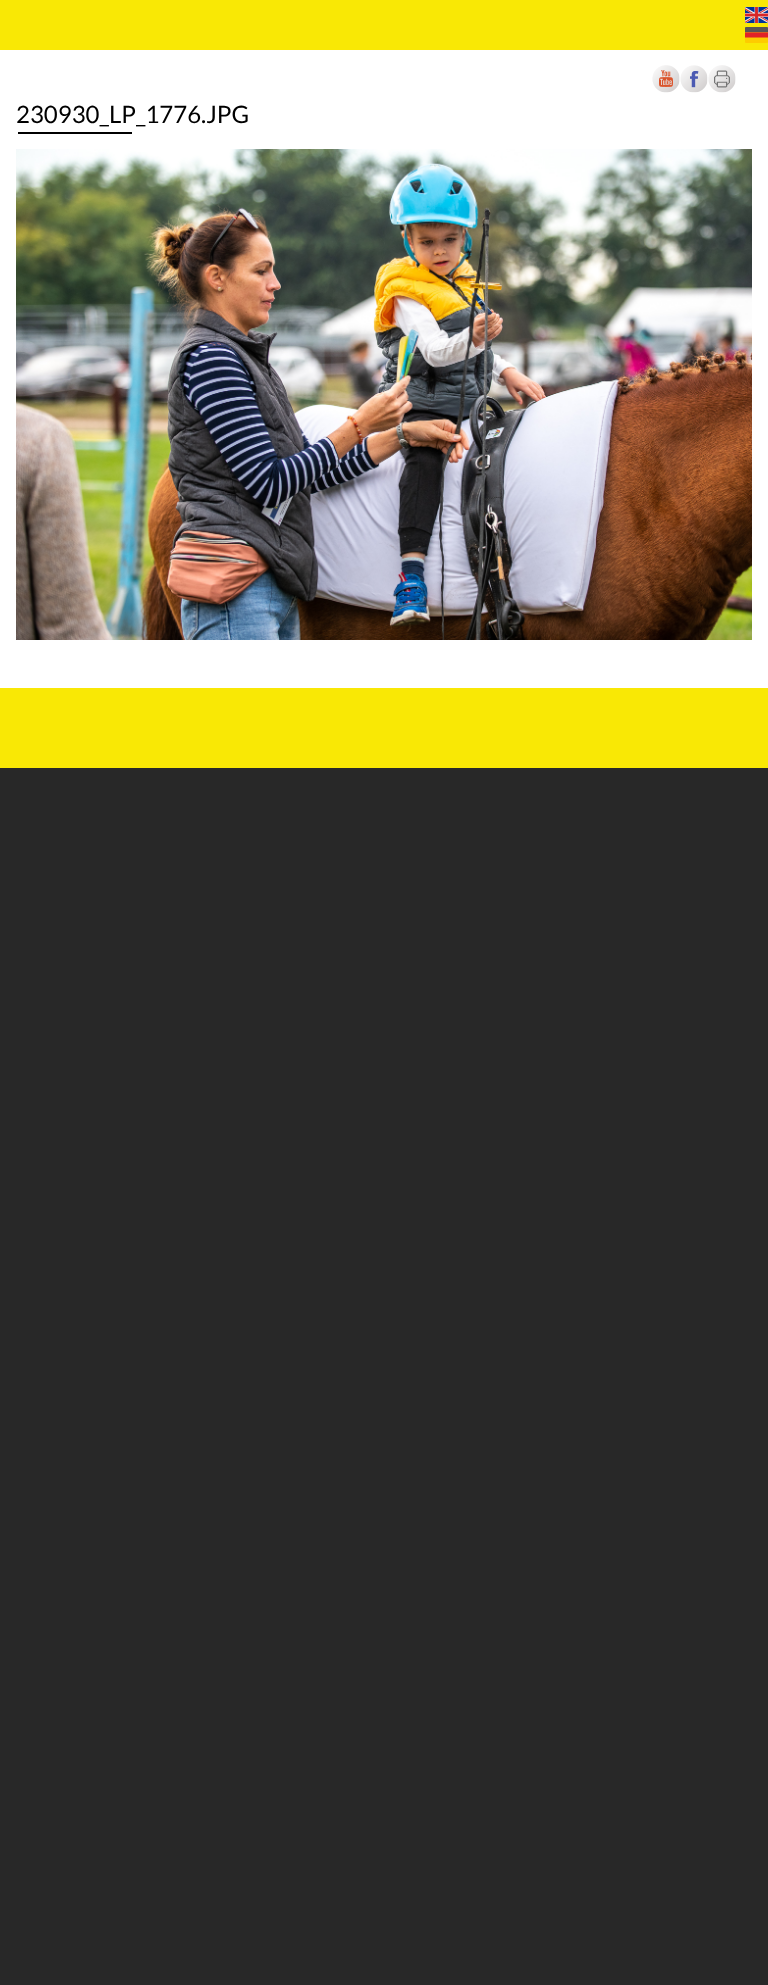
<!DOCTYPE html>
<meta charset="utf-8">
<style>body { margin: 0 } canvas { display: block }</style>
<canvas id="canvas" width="768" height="1985"></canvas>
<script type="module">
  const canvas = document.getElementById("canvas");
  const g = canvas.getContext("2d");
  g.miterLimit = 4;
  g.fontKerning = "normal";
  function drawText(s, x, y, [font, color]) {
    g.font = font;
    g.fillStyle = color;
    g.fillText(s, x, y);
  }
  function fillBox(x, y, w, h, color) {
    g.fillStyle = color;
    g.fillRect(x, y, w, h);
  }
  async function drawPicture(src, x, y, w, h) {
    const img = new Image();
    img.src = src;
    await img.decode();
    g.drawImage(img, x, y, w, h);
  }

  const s1 = ["24px Lato", "#000000"];

  fillBox(0, 0, 768, 1985, "#282828");
  fillBox(0, 50, 768, 638, "#FFFFFF");
  fillBox(0, 0, 768, 50, "#F9E805");
  await drawPicture("pic1.png", 745, 7, 23, 16);
  await drawPicture("pic2.png", 745, 27, 23, 16);
  await drawPicture("pic3.png", 652, 65, 28, 28);
  await drawPicture("pic4.png", 680, 65, 28, 28);
  await drawPicture("pic5.png", 708, 65, 28, 28);
  drawText("230930_LP_1776.JPG", 16, 123, s1);
  fillBox(18, 132, 114, 2, "#000000");
  await drawPicture("pic6.png", 16, 149, 736, 491);
  fillBox(0, 688, 768, 80, "#F9E805");
</script>
